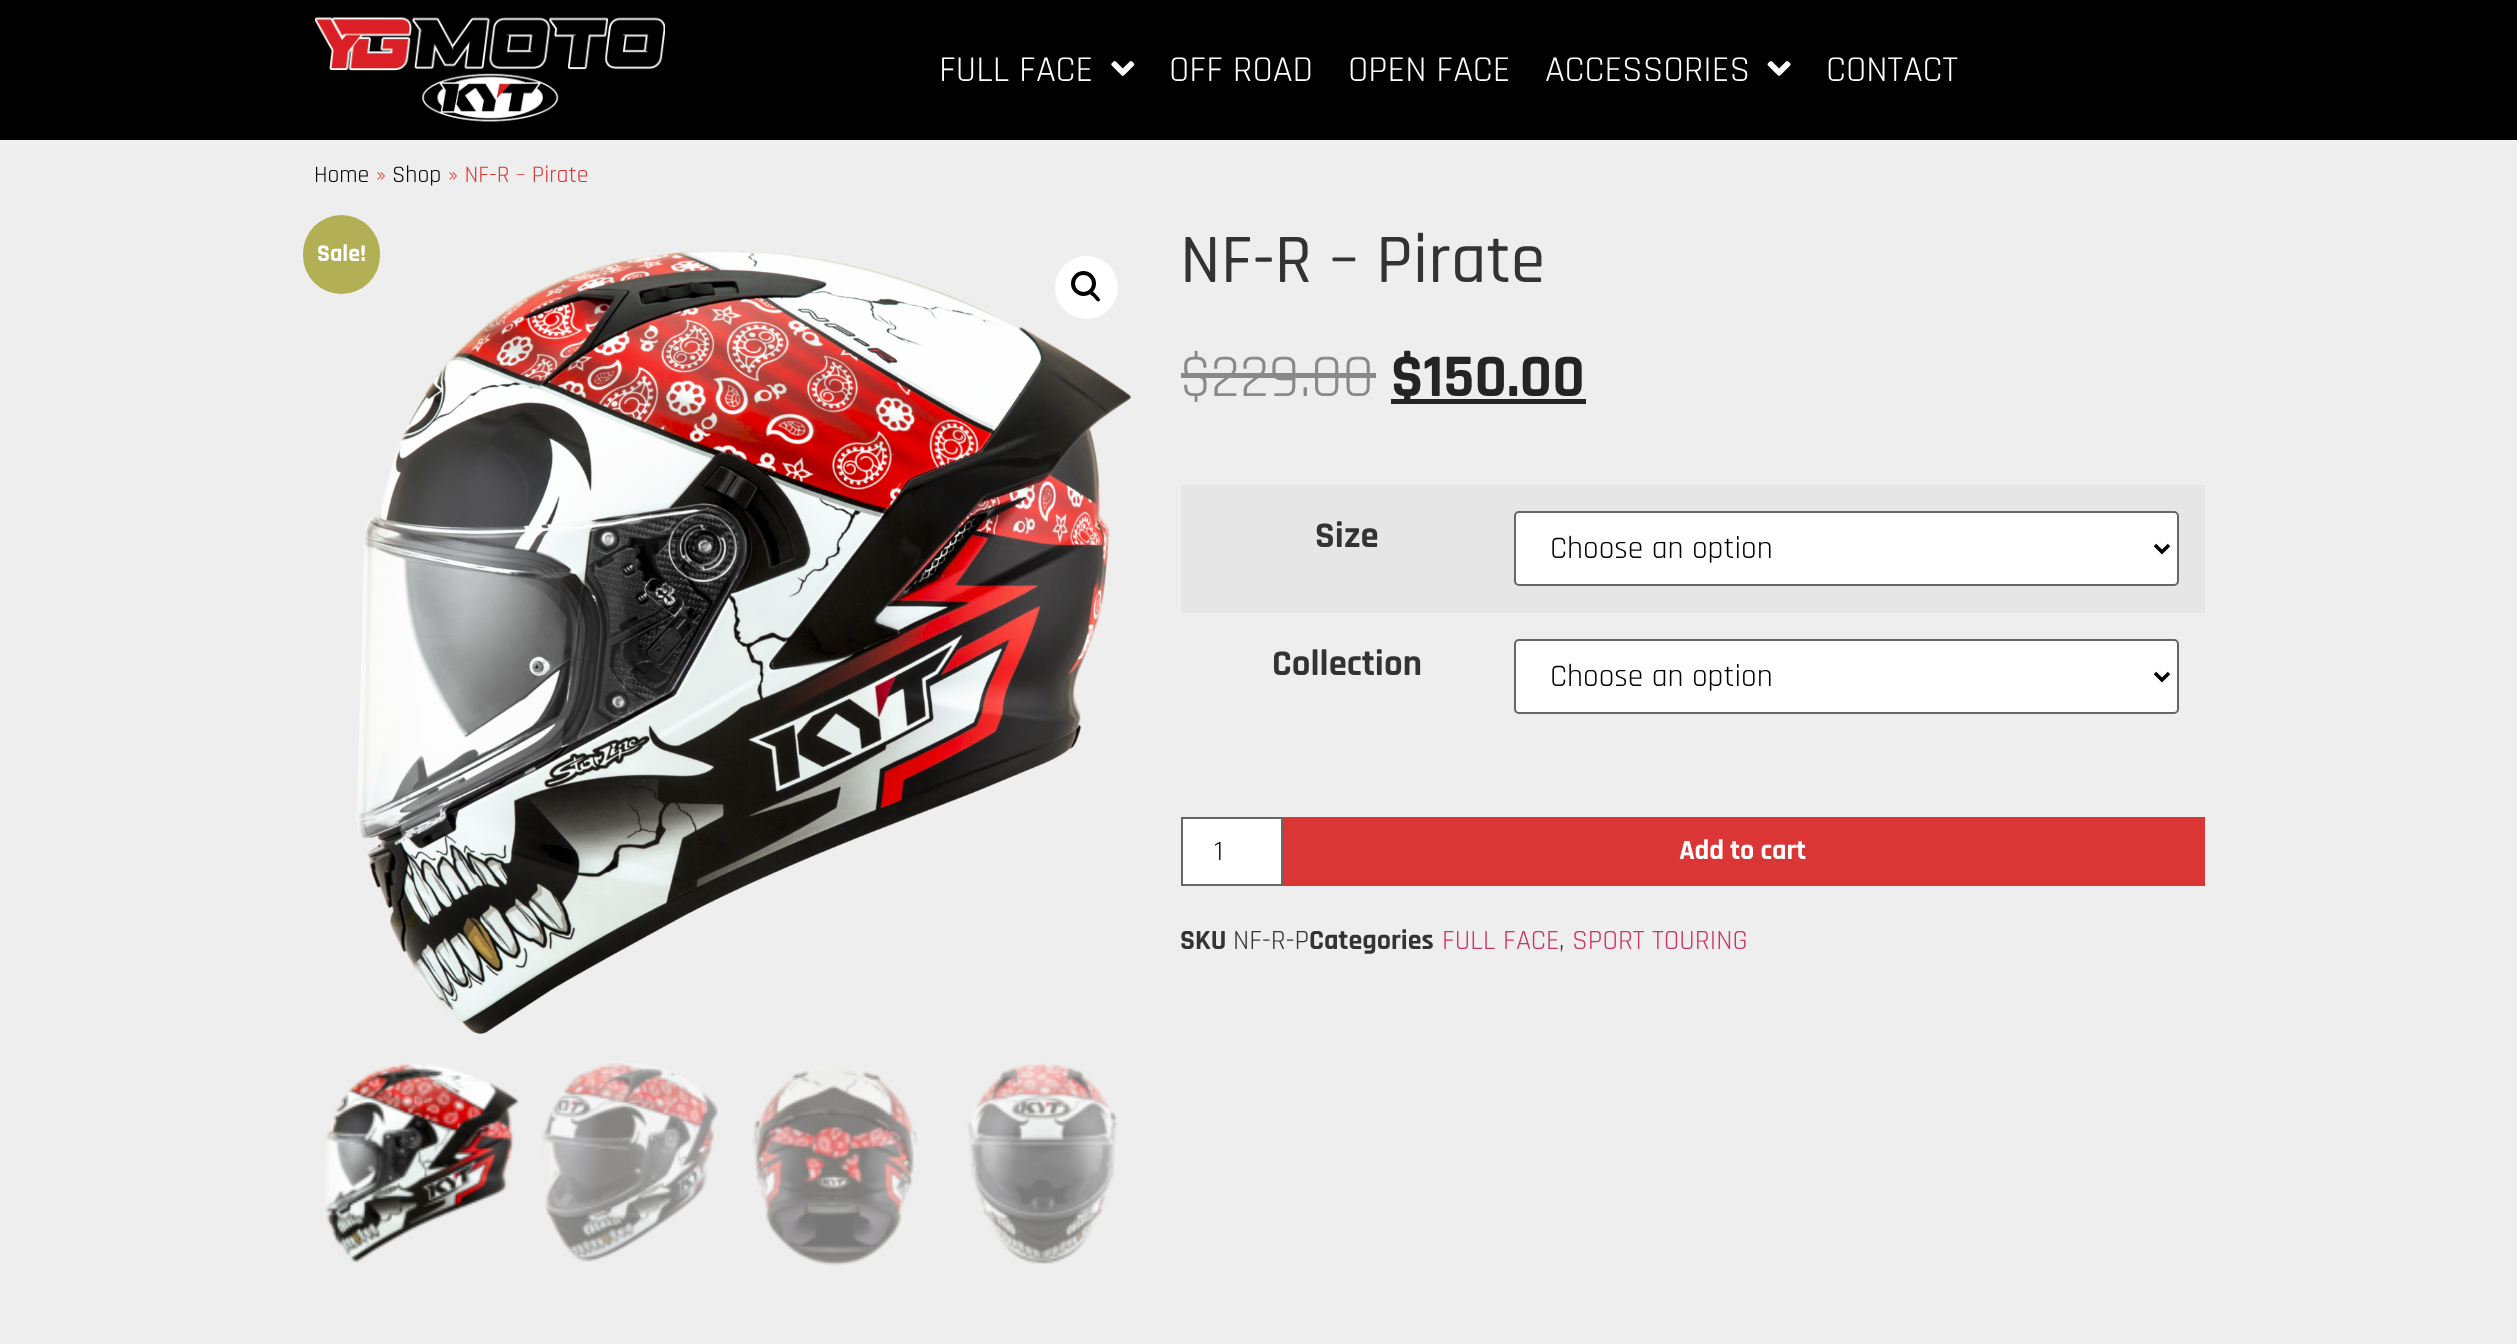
<!DOCTYPE html>
<meta charset="utf-8">
<style>body { margin: 0 } canvas { display: block }</style>
<canvas id="canvas" width="2517" height="1344"></canvas>
<script type="module">
  const canvas = document.getElementById("canvas");
  const g = canvas.getContext("2d");
  g.miterLimit = 4;
  g.fontKerning = "normal";
  function drawText(s, x, y, [font, color]) {
    g.font = font;
    g.fillStyle = color;
    g.fillText(s, x, y);
  }
  function fillBox(x, y, w, h, color) {
    g.fillStyle = color;
    g.fillRect(x, y, w, h);
  }
  function fillRounded(x, y, w, h, r, color) {
    g.fillStyle = color;
    g.beginPath();
    g.roundRect(x, y, w, h, r);
    g.fill();
  }
  async function drawPicture(src, x, y, w, h) {
    const img = new Image();
    img.src = src;
    await img.decode();
    g.drawImage(img, x, y, w, h);
  }

  const s1 = ["36.75px Rajdhani", "#FFFFFF"];
  const s2 = ["23.75px Rajdhani", "#000000"];
  const s3 = ["23.75px Rajdhani", "#DA3636"];
  const s4 = ["bold 24px Rajdhani", "#FFFFFF"];
  const s5 = ["500 70px Rajdhani", "#333333"];
  const s6 = ["61px Rajdhani", "#898989"];
  const s7 = ["bold 61px Rajdhani", "#242424"];
  const s8 = ["bold 36.75px Rajdhani", "#333333"];
  const s9 = ["31.5px Rajdhani", "#000000"];
  const s10 = ["28px Rajdhani", "#000000"];
  const s11 = ["bold 28px Rajdhani", "#FFFFFF"];
  const s12 = ["bold 28px Rajdhani", "#333333"];
  const s13 = ["28px Rajdhani", "#333333"];
  const s14 = ["28px Rajdhani", "#CC3366"];

  fillBox(0, 0, 2517, 1344, "#000000");
  await drawPicture("pic1.png", 315, 17, 350, 105);
  drawText("FULL FACE", 939, 81, s1);
  await drawPicture("pic2.png", 1111, 61, 24, 15);
  drawText("OFF ROAD", 1169, 81, s1);
  drawText("OPEN FACE", 1348, 81, s1);
  drawText("ACCESSORIES", 1545, 81, s1);
  await drawPicture("pic3.png", 1767, 61, 24, 15);
  drawText("CONTACT", 1826, 81, s1);
  fillBox(0, 140, 2517, 1204, "#EEEEEE");
  drawText("Home", 314, 182, s2);
  drawText("»", 376, 182, s3);
  drawText("Shop", 392, 182, s2);
  drawText("» NF-R – Pirate", 448, 182, s3);
  await drawPicture("pic4.png", 356, 250, 775, 784);
  fillRounded(303, 215, 77, 79, 38.5, "#B3AF54");
  drawText("Sale!", 317, 261, s4);
  g.beginPath();
  g.arc(1086.5, 287.5, 31.5, 0, Math.PI * 2);
  g.fill();
  g.beginPath();
  g.arc(1083.5, 283.5, 10.5, 0, Math.PI * 2);
  g.strokeStyle = "#000000";
  g.lineWidth = 4;
  g.stroke();
  g.fillStyle = "#000000";
  g.beginPath();
  g.moveTo(1089.5, 291);
  g.bezierCurveTo(1091.5, 289, 1095, 293.5, 1096, 294.5);
  g.bezierCurveTo(1097, 296, 1101.5, 299, 1099.5, 301);
  g.bezierCurveTo(1097.5, 303, 1094.5, 298, 1093.5, 297);
  g.bezierCurveTo(1092.5, 296, 1087.5, 293, 1089.5, 291);
  g.closePath();
  g.fill();
  await drawPicture("pic5.png", 325, 1063, 195, 200);
  await drawPicture("pic6.png", 542, 1063, 176, 199);
  await drawPicture("pic7.png", 752, 1067, 166, 199);
  await drawPicture("pic8.png", 967, 1063, 150, 201);
  drawText("NF-R – Pirate", 1180, 282, s5);
  drawText("$229.00", 1180, 396, s6);
  fillBox(1181, 373, 195, 5, "#898989");
  fillBox(1391, 399, 195, 5, "#242424");
  drawText("$150.00", 1391, 396, s7);
  fillBox(1181, 485, 1024, 128, "#E6E6E6");
  drawText("Size", 1315, 547, s8);
  g.fillStyle = "#FFFFFF";
  g.beginPath();
  g.roundRect(1515, 512, 663, 73, 4);
  g.fill();
  g.strokeStyle = "#666666";
  g.lineWidth = 2;
  g.stroke();
  g.beginPath();
  g.moveTo(2155, 545);
  g.lineTo(2162, 552);
  g.lineTo(2169, 545);
  g.strokeStyle = "#000000";
  g.lineWidth = 3.5;
  g.stroke();
  drawText("Choose an option", 1550, 558, s9);
  drawText("Collection", 1272, 675, s8);
  g.fillStyle = "#FFFFFF";
  g.beginPath();
  g.roundRect(1515, 640, 663, 73, 4);
  g.fill();
  g.strokeStyle = "#666666";
  g.lineWidth = 2;
  g.stroke();
  g.beginPath();
  g.moveTo(2155, 673);
  g.lineTo(2162, 680);
  g.lineTo(2169, 673);
  g.strokeStyle = "#000000";
  g.lineWidth = 3.5;
  g.stroke();
  drawText("Choose an option", 1550, 686, s9);
  g.fillStyle = "#FFFFFF";
  g.beginPath();
  g.rect(1182, 818, 100, 67);
  g.fill();
  g.strokeStyle = "#666666";
  g.lineWidth = 2;
  g.stroke();
  drawText("1", 1214, 860, s10);
  fillBox(1283, 817, 922, 69, "#DA3636");
  drawText("Add to cart", 1679, 859, s11);
  drawText("SKU", 1180, 949, s12);
  drawText("NF-R-P", 1233, 949, s13);
  drawText("Categories", 1309, 949, s12);
  drawText("FULL FACE", 1442, 949, s14);
  drawText(",", 1559, 949, s13);
  drawText("SPORT TOURING", 1572, 949, s14);
</script>
